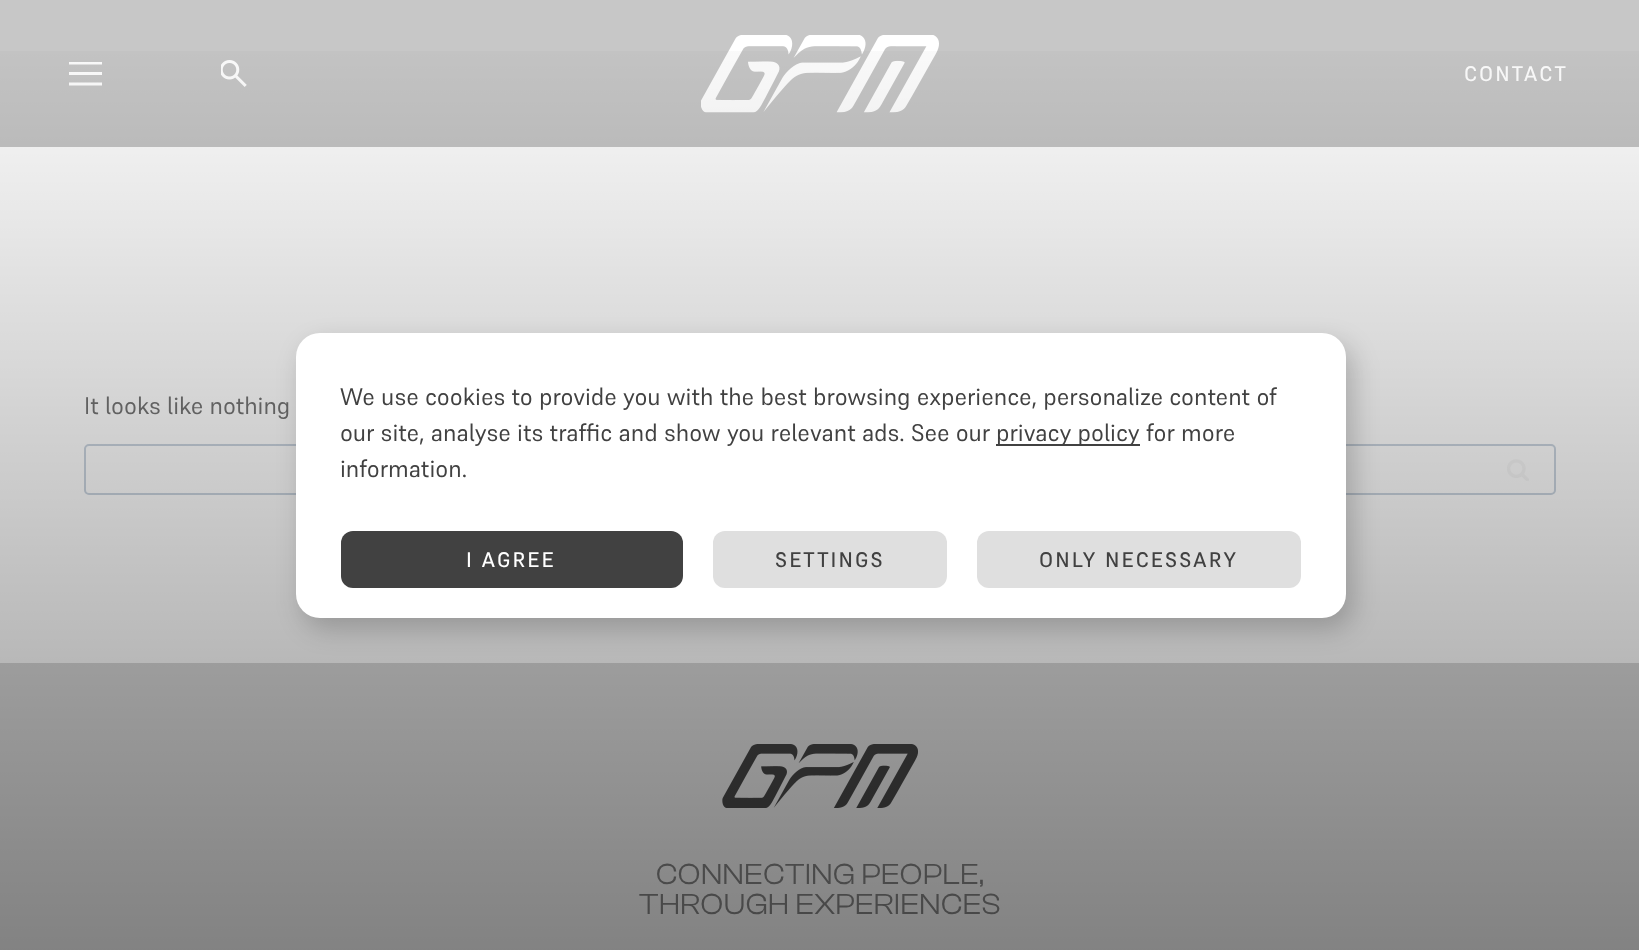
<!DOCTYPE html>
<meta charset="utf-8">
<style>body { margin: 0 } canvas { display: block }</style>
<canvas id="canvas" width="1639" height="950"></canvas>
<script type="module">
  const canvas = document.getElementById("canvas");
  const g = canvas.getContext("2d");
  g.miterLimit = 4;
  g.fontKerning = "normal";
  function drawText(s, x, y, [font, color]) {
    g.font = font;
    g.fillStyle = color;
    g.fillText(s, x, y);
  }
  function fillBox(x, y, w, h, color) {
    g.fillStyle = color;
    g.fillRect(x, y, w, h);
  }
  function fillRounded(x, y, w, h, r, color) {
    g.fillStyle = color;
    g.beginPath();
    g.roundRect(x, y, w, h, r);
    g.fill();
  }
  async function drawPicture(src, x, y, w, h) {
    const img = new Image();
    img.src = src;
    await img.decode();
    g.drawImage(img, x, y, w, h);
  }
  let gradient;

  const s1 = ["500 21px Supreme", "#FFFFFF"];
  const s2 = ["24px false", "#757575"];
  const s3 = ["30px 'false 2'", "#757575"];
  const s4 = ["24px false", "#414141"];
  const s5 = ["500 21px Supreme", "#414141"];

  fillBox(0, 0, 1639, 950, "#FFFFFF");
  fillBox(0, 0, 1639, 147, "#C7C7C7");
  g.save();
  g.beginPath();
  g.rect(69, 62, 33, 24);
  g.clip();
  g.fillStyle = "#FFFFFF";
  g.beginPath();
  g.moveTo(69, 85.5);
  g.lineTo(69, 82.5);
  g.lineTo(102, 82.5);
  g.lineTo(102, 85.5);
  g.closePath();
  g.moveTo(69, 75);
  g.lineTo(69, 72);
  g.lineTo(102, 72);
  g.lineTo(102, 75);
  g.closePath();
  g.moveTo(69, 64.5);
  g.lineTo(69, 61.5);
  g.lineTo(102, 61.5);
  g.lineTo(102, 64.5);
  g.closePath();
  g.fill();
  g.restore();
  await drawPicture("pic1.png", 221, 60, 26, 27);
  await drawPicture("pic2.png", 701, 35, 238, 78);
  g.letterSpacing = "2.1px";
  drawText("CONTACT", 1464, 81, s1);
  g.letterSpacing = "0px";
  drawText("It looks like nothing", 84, 414, s2);
  g.beginPath();
  g.roundRect(85, 445, 1470, 49, 4);
  g.strokeStyle = "#CBD5E0";
  g.lineWidth = 2;
  g.stroke();
  await drawPicture("pic3.png", 1507, 459, 22, 22);
  fillBox(0, 663, 1639, 287, "#D9D9D9");
  await drawPicture("pic4.png", 722, 744, 196, 64);
  g.letterSpacing = "0.6px";
  drawText("CONNECTING PEOPLE,", 656, 884, s3);
  drawText("THROUGH EXPERIENCES", 639, 914, s3);
  gradient = g.createLinearGradient(820, 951, 820, 0);
  gradient.addColorStop(0, "rgba(0, 0, 0, 0.4)");
  gradient.addColorStop(1, "rgba(0, 0, 0, 0)");
  g.fillStyle = gradient;
  g.fillRect(0, 51, 1639, 899);
  g.fillStyle = "rgba(0, 0, 0, 0.2)";
  g.filter = "blur(13px)";
  g.beginPath();
  g.roundRect(303, 344, 1050, 285, 24);
  g.fill();
  g.filter = "none";
  fillRounded(296, 333, 1050, 285, 24, "#FFFFFF");
  g.letterSpacing = "0px";
  drawText("We use cookies to provide you with the best browsing experience, personalize content of", 340, 405, s4);
  drawText("our site, analyse its traffic and show you relevant ads. See our", 340, 441, s4);
  fillBox(996, 444, 144, 2, "#414141");
  drawText("privacy policy for more", 996, 441, s4);
  drawText("information.", 340, 477, s4);
  fillRounded(341, 531, 342, 57, 12, "#414141");
  g.letterSpacing = "2.1px";
  drawText("I AGREE", 466, 567, s1);
  fillRounded(713, 531, 234, 57, 12, "#DFDFDF");
  drawText("SETTINGS", 775, 567, s5);
  fillRounded(977, 531, 324, 57, 12, "#DFDFDF");
  drawText("ONLY NECESSARY", 1039, 567, s5);
</script>
